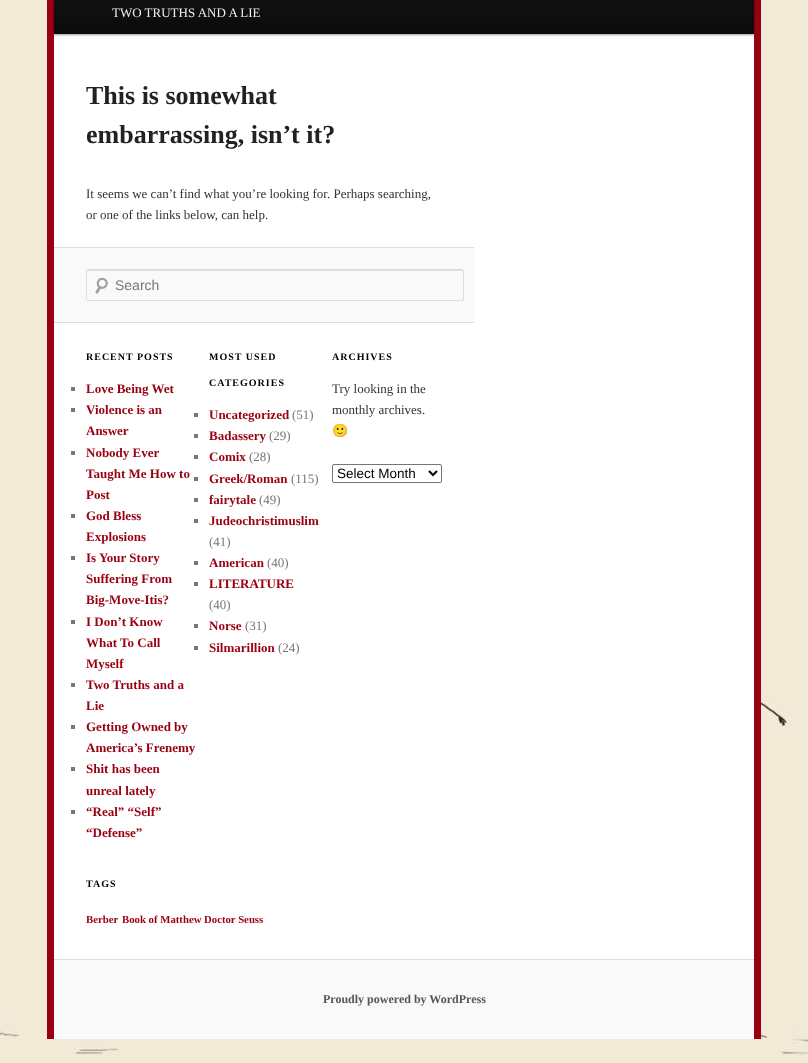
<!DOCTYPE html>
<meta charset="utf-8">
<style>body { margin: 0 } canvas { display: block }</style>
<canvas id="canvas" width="808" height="1063"></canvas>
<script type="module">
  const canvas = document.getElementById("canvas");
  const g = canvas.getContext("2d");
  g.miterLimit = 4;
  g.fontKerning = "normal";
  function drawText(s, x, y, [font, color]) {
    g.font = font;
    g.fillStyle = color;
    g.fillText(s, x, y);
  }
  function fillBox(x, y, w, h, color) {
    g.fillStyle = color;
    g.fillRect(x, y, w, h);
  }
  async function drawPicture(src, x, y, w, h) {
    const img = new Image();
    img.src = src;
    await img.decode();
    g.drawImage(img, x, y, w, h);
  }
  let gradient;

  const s1 = ["13px Liberation Serif", "#EEEEEE"];
  const s2 = ["bold 26px Liberation Serif", "#222222"];
  const s3 = ["13px Liberation Serif", "#333333"];
  const s4 = ["14px Liberation Sans", "#777777"];
  const s5 = ["bold 10px Liberation Serif", "#000000"];
  const s6 = ["bold 13px Liberation Serif", "#990011"];
  const s7 = ["13px Liberation Serif", "#777777"];
  const s8 = ["13px Noto Color Emoji", "#333333"];
  const s9 = ["13.5px Liberation Sans", "#000000"];
  const s10 = ["bold 10.75px Liberation Serif", "#990011"];
  const s11 = ["bold 12px Liberation Serif", "#555555"];

  fillBox(0, 0, 808, 1063, "#FFFFFF");
  await drawPicture("pic1.png", 0, 0, 808, 1063);
  fillBox(54, 34, 700, 925, "#FFFFFF");
  fillBox(754, 0, 7, 1039, "#990011");
  fillBox(47, 0, 7, 1039, "#990011");
  g.fillStyle = "rgba(0, 0, 0, 0.4)";
  g.filter = "blur(1px)";
  g.beginPath();
  g.rect(54, -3, 700, 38);
  g.fill();
  g.filter = "none";
  gradient = g.createLinearGradient(404, -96, 404, 34);
  gradient.addColorStop(0, "#252525");
  gradient.addColorStop(1, "#0A0A0A");
  g.fillStyle = gradient;
  g.fillRect(54, 0, 700, 34);
  drawText("TWO TRUTHS AND A LIE", 112, 17, s1);
  drawText("This is somewhat", 86, 104, s2);
  drawText("embarrassing, isn’t it?", 86, 143, s2);
  drawText("It seems we can’t find what you’re looking for. Perhaps searching,", 86, 198, s3);
  drawText("or one of the links below, can help.", 86, 219, s3);
  fillBox(54, 248, 420, 74, "#F9F9F9");
  fillBox(54, 247, 420, 1, "#DDDDDD");
  fillBox(54, 322, 420, 1, "#DDDDDD");
  await drawPicture("pic2.png", 95, 277, 13, 17);
  g.fillStyle = "#E0E0E0";
  g.beginPath();
  g.moveTo(88, 271);
  g.lineTo(462, 271);
  g.bezierCurveTo(463, 271, 463, 271, 463, 272);
  g.lineTo(463, 271);
  g.lineTo(462, 270);
  g.lineTo(88, 270);
  g.bezierCurveTo(87, 270, 87, 271, 87, 272);
  g.bezierCurveTo(87, 271, 87, 271, 88, 271);
  g.closePath();
  g.fill();
  g.beginPath();
  g.roundRect(86.5, 269.5, 377, 31, 1.5);
  g.strokeStyle = "#DDDDDD";
  g.stroke();
  drawText("Search", 115, 290, s4);
  g.letterSpacing = "1px";
  drawText("RECENT POSTS", 86, 360, s5);
  fillBox(71, 387, 4, 4, "#777777");
  g.letterSpacing = "0px";
  drawText("Love Being Wet", 86, 393, s6);
  fillBox(71, 408, 4, 4, "#777777");
  drawText("Violence is an", 86, 414, s6);
  drawText("Answer", 86, 435, s6);
  fillBox(71, 451, 4, 4, "#777777");
  drawText("Nobody Ever", 86, 457, s6);
  drawText("Taught Me How to", 86, 478, s6);
  drawText("Post", 86, 499, s6);
  fillBox(71, 514, 4, 4, "#777777");
  drawText("God Bless", 86, 520, s6);
  drawText("Explosions", 86, 541, s6);
  fillBox(71, 556, 4, 4, "#777777");
  drawText("Is Your Story", 86, 562, s6);
  drawText("Suffering From", 86, 583, s6);
  drawText("Big-Move-Itis?", 86, 604, s6);
  fillBox(71, 620, 4, 4, "#777777");
  drawText("I Don’t Know", 86, 626, s6);
  drawText("What To Call", 86, 647, s6);
  drawText("Myself", 86, 668, s6);
  fillBox(71, 683, 4, 4, "#777777");
  drawText("Two Truths and a", 86, 689, s6);
  drawText("Lie", 86, 710, s6);
  fillBox(71, 725, 4, 4, "#777777");
  drawText("Getting Owned by", 86, 731, s6);
  drawText("America’s Frenemy", 86, 752, s6);
  fillBox(71, 767, 4, 4, "#777777");
  drawText("Shit has been", 86, 773, s6);
  drawText("unreal lately", 86, 795, s6);
  fillBox(71, 810, 4, 4, "#777777");
  drawText("“Real” “Self”", 86, 816, s6);
  drawText("“Defense”", 86, 837, s6);
  g.letterSpacing = "1px";
  drawText("MOST USED", 209, 360, s5);
  drawText("CATEGORIES", 209, 386, s5);
  fillBox(194, 413, 4, 4, "#777777");
  g.letterSpacing = "0px";
  drawText("Uncategorized", 209, 419, s6);
  drawText("(51)", 292, 419, s7);
  fillBox(194, 434, 4, 4, "#777777");
  drawText("Badassery", 209, 440, s6);
  drawText("(29)", 269, 440, s7);
  fillBox(194, 455, 4, 4, "#777777");
  drawText("Comix", 209, 461, s6);
  drawText("(28)", 249, 461, s7);
  fillBox(194, 477, 4, 4, "#777777");
  drawText("Greek/Roman", 209, 483, s6);
  drawText("(115)", 291, 483, s7);
  fillBox(194, 498, 4, 4, "#777777");
  drawText("fairytale", 209, 504, s6);
  drawText("(49)", 259, 504, s7);
  fillBox(194, 519, 4, 4, "#777777");
  drawText("Judeochristimuslim", 209, 525, s6);
  drawText("(41)", 209, 546, s7);
  fillBox(194, 561, 4, 4, "#777777");
  drawText("American", 209, 567, s6);
  drawText("(40)", 267, 567, s7);
  fillBox(194, 582, 4, 4, "#777777");
  drawText("LITERATURE", 209, 588, s6);
  drawText("(40)", 209, 609, s7);
  fillBox(194, 624, 4, 4, "#777777");
  drawText("Norse", 209, 630, s6);
  drawText("(31)", 245, 630, s7);
  fillBox(194, 646, 4, 4, "#777777");
  drawText("Silmarillion", 209, 652, s6);
  drawText("(24)", 278, 652, s7);
  g.letterSpacing = "1px";
  drawText("ARCHIVES", 332, 360, s5);
  g.letterSpacing = "0px";
  drawText("Try looking in the", 332, 393, s3);
  drawText("monthly archives.", 332, 414, s3);
  drawText("🙂", 332, 435, s8);
  g.beginPath();
  g.roundRect(332.5, 464.5, 109, 18, 1.5);
  g.strokeStyle = "#767676";
  g.stroke();
  g.beginPath();
  g.moveTo(429, 471);
  g.lineTo(433, 475);
  g.lineTo(437, 471);
  g.strokeStyle = "#000000";
  g.lineWidth = 2;
  g.stroke();
  drawText("Select Month", 337, 478, s9);
  g.letterSpacing = "1px";
  drawText("TAGS", 86, 887, s5);
  g.letterSpacing = "0px";
  drawText("Berber", 86, 923, s10);
  drawText("Book of Matthew", 122, 923, s10);
  drawText("Doctor Seuss", 204, 923, s10);
  fillBox(54, 960, 700, 79, "#F9F9F9");
  fillBox(54, 959, 700, 1, "#DDDDDD");
  drawText("Proudly powered by WordPress", 323, 1003, s11);
</script>
